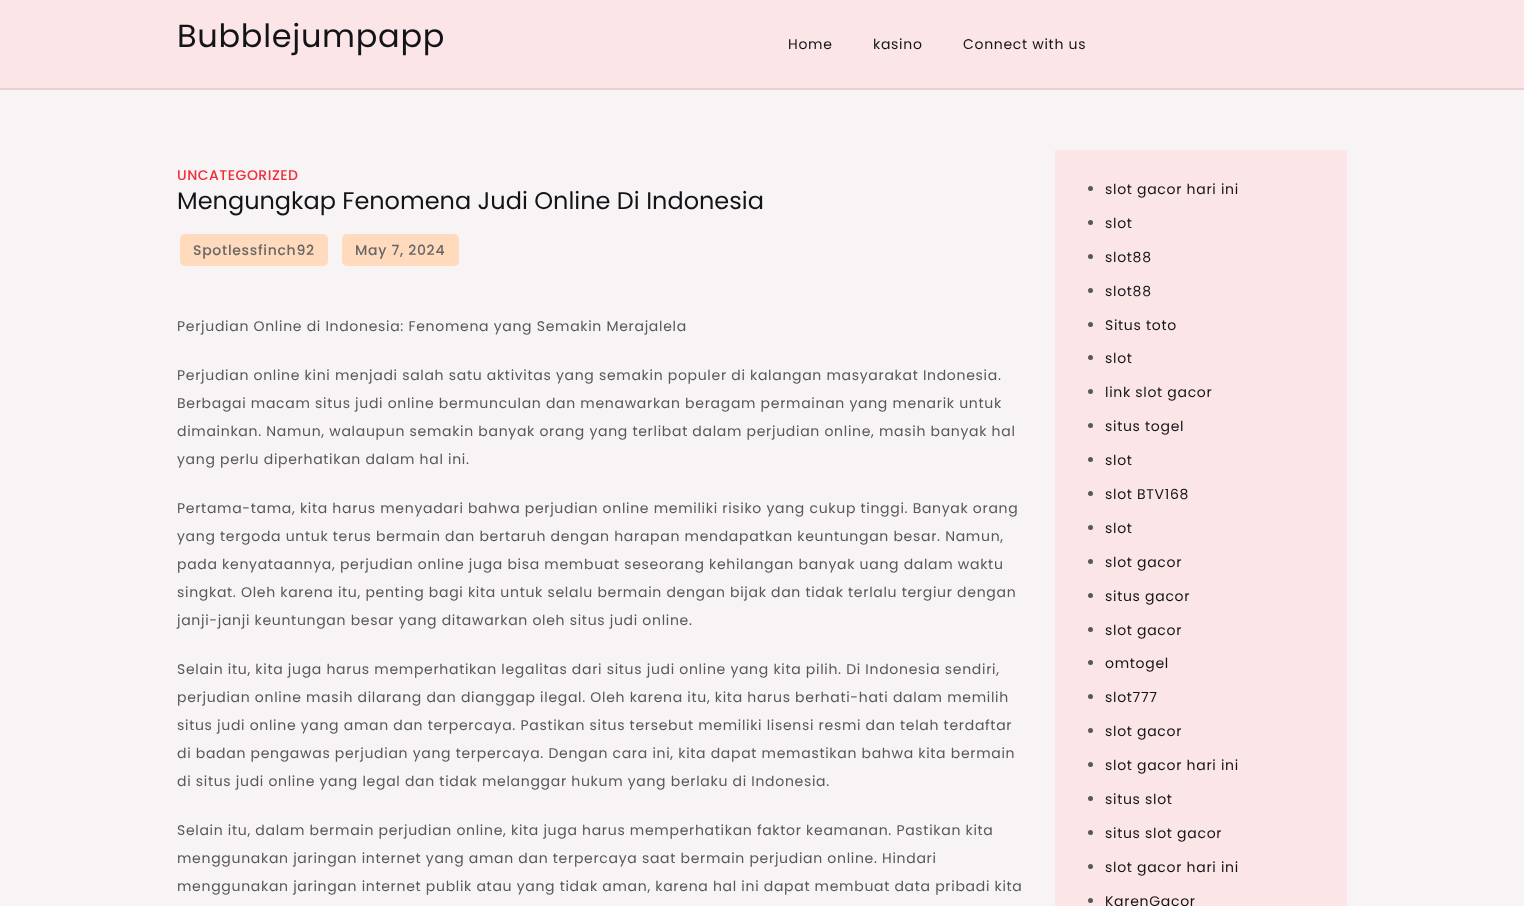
<!DOCTYPE html>
<meta charset="utf-8">
<style>body { margin: 0 } canvas { display: block }</style>
<canvas id="canvas" width="1524" height="906"></canvas>
<script type="module">
  const canvas = document.getElementById("canvas");
  const g = canvas.getContext("2d");
  g.miterLimit = 4;
  g.fontKerning = "normal";
  function drawText(s, x, y, [font, color]) {
    g.font = font;
    g.fillStyle = color;
    g.fillText(s, x, y);
  }
  function fillBox(x, y, w, h, color) {
    g.fillStyle = color;
    g.fillRect(x, y, w, h);
  }
  function fillRounded(x, y, w, h, r, color) {
    g.fillStyle = color;
    g.beginPath();
    g.roundRect(x, y, w, h, r);
    g.fill();
  }

  const s1 = ["32px Poppins", "#121418"];
  const s2 = ["14px Poppins", "#121418"];
  const s3 = ["500 14px Poppins", "#F22D3A"];
  const s4 = ["24px Poppins", "#121418"];
  const s5 = ["500 14px Poppins", "#666666"];
  const s6 = ["14px Poppins", "#565859"];

  fillBox(0, 0, 1524, 906, "#F8F3F4");
  fillBox(0, 0, 1524, 88, "#FCE5E6");
  fillBox(0, 88, 1524, 2, "#E6D1D2");
  g.letterSpacing = "0.7px";
  drawText("Bubblejumpapp", 177, 47, s1);
  drawText("Home", 788, 49, s2);
  drawText("kasino", 873, 49, s2);
  drawText("Connect with us", 963, 49, s2);
  g.letterSpacing = "0.5px";
  drawText("UNCATEGORIZED", 177, 180, s3);
  g.letterSpacing = "0px";
  drawText("Mengungkap Fenomena Judi Online Di Indonesia", 177, 209, s4);
  fillRounded(180, 234, 148, 32, 5, "#FFDABC");
  g.letterSpacing = "0.7px";
  drawText("Spotlessfinch92", 193, 255, s5);
  fillRounded(342, 234, 117, 32, 5, "#FFDABC");
  drawText("May 7, 2024", 355, 255, s5);
  drawText("Perjudian Online di Indonesia: Fenomena yang Semakin Merajalela", 177, 331, s6);
  drawText("Perjudian online kini menjadi salah satu aktivitas yang semakin populer di kalangan masyarakat Indonesia.", 177, 380, s6);
  drawText("Berbagai macam situs judi online bermunculan dan menawarkan beragam permainan yang menarik untuk", 177, 408, s6);
  drawText("dimainkan. Namun, walaupun semakin banyak orang yang terlibat dalam perjudian online, masih banyak hal", 177, 436, s6);
  drawText("yang perlu diperhatikan dalam hal ini.", 177, 464, s6);
  drawText("Pertama-tama, kita harus menyadari bahwa perjudian online memiliki risiko yang cukup tinggi. Banyak orang", 177, 513, s6);
  drawText("yang tergoda untuk terus bermain dan bertaruh dengan harapan mendapatkan keuntungan besar. Namun,", 177, 541, s6);
  drawText("pada kenyataannya, perjudian online juga bisa membuat seseorang kehilangan banyak uang dalam waktu", 177, 569, s6);
  drawText("singkat. Oleh karena itu, penting bagi kita untuk selalu bermain dengan bijak dan tidak terlalu tergiur dengan", 177, 597, s6);
  drawText("janji-janji keuntungan besar yang ditawarkan oleh situs judi online.", 177, 625, s6);
  drawText("Selain itu, kita juga harus memperhatikan legalitas dari situs judi online yang kita pilih. Di Indonesia sendiri,", 177, 674, s6);
  drawText("perjudian online masih dilarang dan dianggap ilegal. Oleh karena itu, kita harus berhati-hati dalam memilih", 177, 702, s6);
  drawText("situs judi online yang aman dan terpercaya. Pastikan situs tersebut memiliki lisensi resmi dan telah terdaftar", 177, 730, s6);
  drawText("di badan pengawas perjudian yang terpercaya. Dengan cara ini, kita dapat memastikan bahwa kita bermain", 177, 758, s6);
  drawText("di situs judi online yang legal dan tidak melanggar hukum yang berlaku di Indonesia.", 177, 786, s6);
  drawText("Selain itu, dalam bermain perjudian online, kita juga harus memperhatikan faktor keamanan. Pastikan kita", 177, 835, s6);
  drawText("menggunakan jaringan internet yang aman dan terpercaya saat bermain perjudian online. Hindari", 177, 863, s6);
  drawText("menggunakan jaringan internet publik atau yang tidak aman, karena hal ini dapat membuat data pribadi kita", 177, 891, s6);
  fillBox(1055, 150, 292, 756, "#FCE5E6");
  g.fillStyle = "#565859";
  g.beginPath();
  g.arc(1090.5, 188.5, 2.5, 0, Math.PI * 2);
  g.fill();
  drawText("slot gacor hari ini", 1105, 194, s2);
  g.fillStyle = "#565859";
  g.beginPath();
  g.arc(1090.5, 222.5, 2.5, 0, Math.PI * 2);
  g.fill();
  drawText("slot", 1105, 228, s2);
  g.fillStyle = "#565859";
  g.beginPath();
  g.arc(1090.5, 256.5, 2.5, 0, Math.PI * 2);
  g.fill();
  drawText("slot88", 1105, 262, s2);
  g.fillStyle = "#565859";
  g.beginPath();
  g.arc(1090.5, 290.5, 2.5, 0, Math.PI * 2);
  g.fill();
  drawText("slot88", 1105, 296, s2);
  g.fillStyle = "#565859";
  g.beginPath();
  g.arc(1090.5, 324.5, 2.5, 0, Math.PI * 2);
  g.fill();
  drawText("Situs toto", 1105, 330, s2);
  g.fillStyle = "#565859";
  g.beginPath();
  g.arc(1090.5, 357.5, 2.5, 0, Math.PI * 2);
  g.fill();
  drawText("slot", 1105, 363, s2);
  g.fillStyle = "#565859";
  g.beginPath();
  g.arc(1090.5, 391.5, 2.5, 0, Math.PI * 2);
  g.fill();
  drawText("link slot gacor", 1105, 397, s2);
  g.fillStyle = "#565859";
  g.beginPath();
  g.arc(1090.5, 425.5, 2.5, 0, Math.PI * 2);
  g.fill();
  drawText("situs togel", 1105, 431, s2);
  g.fillStyle = "#565859";
  g.beginPath();
  g.arc(1090.5, 459.5, 2.5, 0, Math.PI * 2);
  g.fill();
  drawText("slot", 1105, 465, s2);
  g.fillStyle = "#565859";
  g.beginPath();
  g.arc(1090.5, 493.5, 2.5, 0, Math.PI * 2);
  g.fill();
  drawText("slot BTV168", 1105, 499, s2);
  g.fillStyle = "#565859";
  g.beginPath();
  g.arc(1090.5, 527.5, 2.5, 0, Math.PI * 2);
  g.fill();
  drawText("slot", 1105, 533, s2);
  g.fillStyle = "#565859";
  g.beginPath();
  g.arc(1090.5, 561.5, 2.5, 0, Math.PI * 2);
  g.fill();
  drawText("slot gacor", 1105, 567, s2);
  g.fillStyle = "#565859";
  g.beginPath();
  g.arc(1090.5, 595.5, 2.5, 0, Math.PI * 2);
  g.fill();
  drawText("situs gacor", 1105, 601, s2);
  g.fillStyle = "#565859";
  g.beginPath();
  g.arc(1090.5, 629.5, 2.5, 0, Math.PI * 2);
  g.fill();
  drawText("slot gacor", 1105, 635, s2);
  g.fillStyle = "#565859";
  g.beginPath();
  g.arc(1090.5, 662.5, 2.5, 0, Math.PI * 2);
  g.fill();
  drawText("omtogel", 1105, 668, s2);
  g.fillStyle = "#565859";
  g.beginPath();
  g.arc(1090.5, 696.5, 2.5, 0, Math.PI * 2);
  g.fill();
  drawText("slot777", 1105, 702, s2);
  g.fillStyle = "#565859";
  g.beginPath();
  g.arc(1090.5, 730.5, 2.5, 0, Math.PI * 2);
  g.fill();
  drawText("slot gacor", 1105, 736, s2);
  g.fillStyle = "#565859";
  g.beginPath();
  g.arc(1090.5, 764.5, 2.5, 0, Math.PI * 2);
  g.fill();
  drawText("slot gacor hari ini", 1105, 770, s2);
  g.fillStyle = "#565859";
  g.beginPath();
  g.arc(1090.5, 798.5, 2.5, 0, Math.PI * 2);
  g.fill();
  drawText("situs slot", 1105, 804, s2);
  g.fillStyle = "#565859";
  g.beginPath();
  g.arc(1090.5, 832.5, 2.5, 0, Math.PI * 2);
  g.fill();
  drawText("situs slot gacor", 1105, 838, s2);
  g.fillStyle = "#565859";
  g.beginPath();
  g.arc(1090.5, 866.5, 2.5, 0, Math.PI * 2);
  g.fill();
  drawText("slot gacor hari ini", 1105, 872, s2);
  g.fillStyle = "#565859";
  g.beginPath();
  g.arc(1090.5, 900.5, 2.5, 0, Math.PI * 2);
  g.fill();
  drawText("KarenGacor", 1105, 906, s2);
</script>
